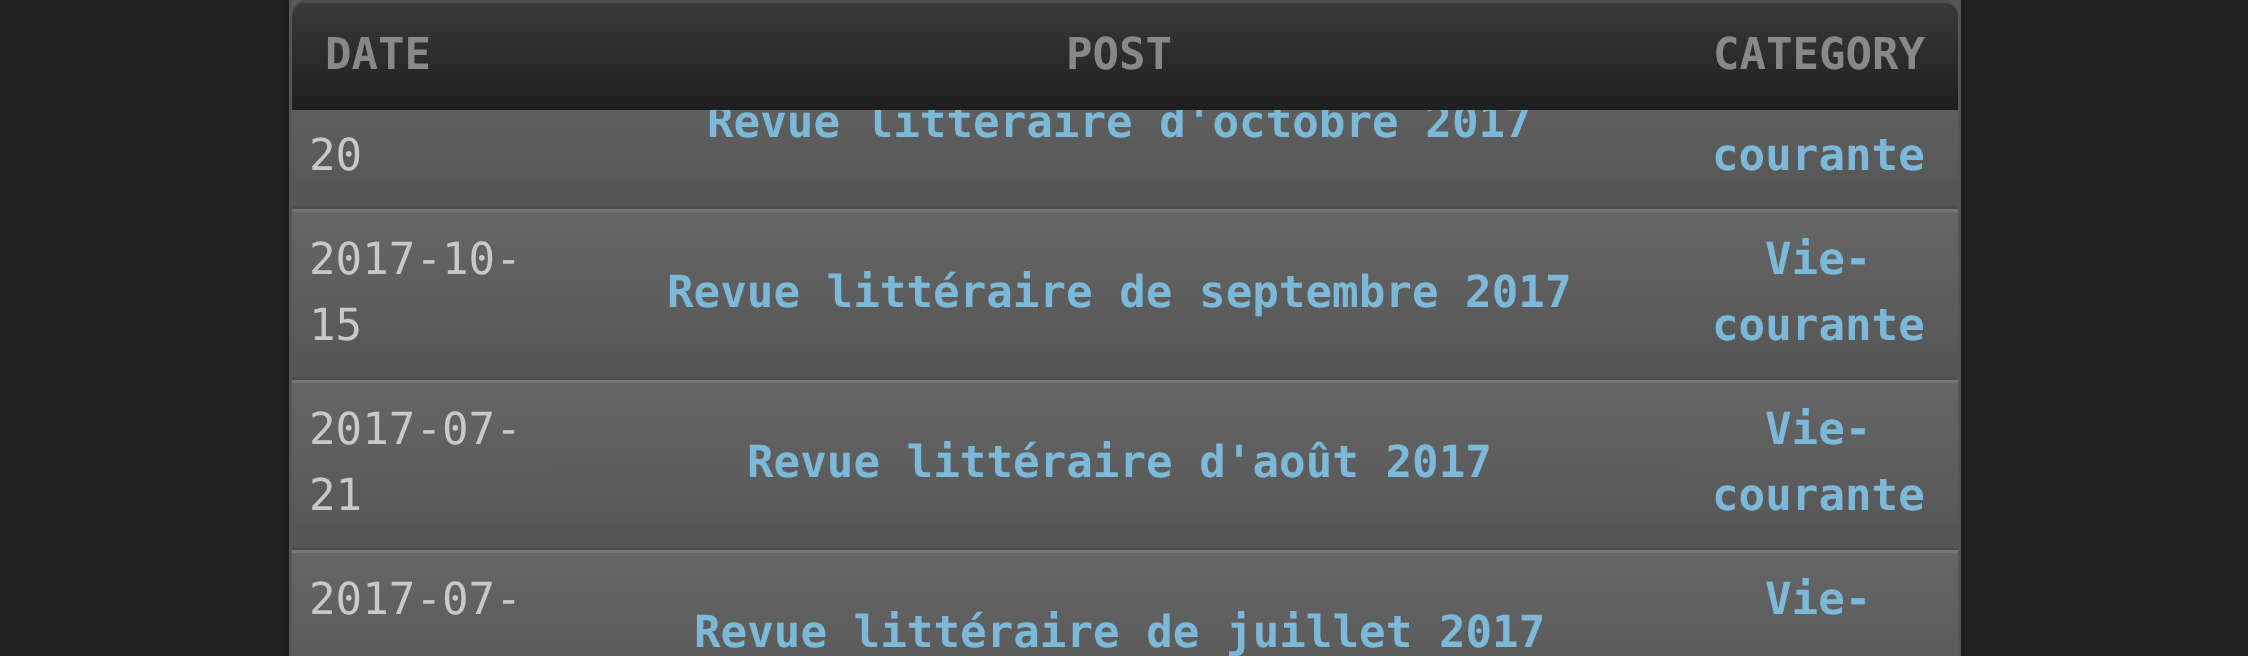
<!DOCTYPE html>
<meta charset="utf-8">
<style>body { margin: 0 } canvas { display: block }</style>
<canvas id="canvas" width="2248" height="656"></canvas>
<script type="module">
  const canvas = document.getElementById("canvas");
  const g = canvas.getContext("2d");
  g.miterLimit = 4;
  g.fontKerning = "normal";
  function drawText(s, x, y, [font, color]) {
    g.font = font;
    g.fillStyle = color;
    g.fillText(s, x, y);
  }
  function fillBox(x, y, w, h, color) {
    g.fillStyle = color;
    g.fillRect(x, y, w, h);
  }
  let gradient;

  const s1 = ["bold 44.2px DejaVu Sans Mono", "#7CB9D8"];
  const s2 = ["bold 44px DejaVu Sans Mono", "#888888"];
  const s3 = ["44.2px DejaVu Sans Mono", "#C8C8C8"];

  fillBox(0, 0, 2248, 656, "#222222");
  g.fillStyle = "rgba(0, 0, 0, 0.3)";
  g.filter = "blur(4px)";
  g.beginPath();
  g.roundRect(289, -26, 1672, 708, 14);
  g.fill();
  g.filter = "none";
  fillBox(289, 0, 1672, 656, "#555555");
  gradient = g.createLinearGradient(425, -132, 425, 36);
  gradient.addColorStop(0, "#666666");
  gradient.addColorStop(1, "#555555");
  g.fillStyle = gradient;
  g.fillRect(292, 0, 14, 11);
  gradient = g.createLinearGradient(1819, -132, 1819, 36);
  gradient.addColorStop(0, "#666666");
  gradient.addColorStop(1, "#555555");
  g.fillStyle = gradient;
  g.fillRect(1944, 0, 14, 11);
  gradient = g.createLinearGradient(1119, 38, 1119, 206);
  gradient.addColorStop(0, "#666666");
  gradient.addColorStop(1, "#555555");
  g.fillStyle = gradient;
  g.fillRect(558, 110, 1122, 71);
  drawText("Revue littéraire d'octobre 2017", 707, 137, s1);
  gradient = g.createLinearGradient(1125, 0, 1125, 110);
  gradient.addColorStop(0, "#3A3A3A");
  gradient.addColorStop(1, "#1E1E1E");
  g.fillStyle = gradient;
  g.beginPath();
  g.roundRect(292, 0, 1666, 110, [14, 14, 0, 0]);
  g.fill();
  g.fillStyle = "rgba(255, 255, 255, 0.1)";
  g.beginPath();
  g.moveTo(305, 3);
  g.lineTo(558, 3);
  g.lineTo(558, 0);
  g.lineTo(306, 0);
  g.bezierCurveTo(298, 0, 292, 6, 292, 14);
  g.lineTo(292, 16);
  g.bezierCurveTo(292, 9, 298, 3, 305, 3);
  g.closePath();
  g.fill();
  drawText("DATE", 325, 69, s2);
  fillBox(558, 0, 1122, 3, "#4D4D4D");
  drawText("POST", 1066, 69, s2);
  g.fillStyle = "rgba(255, 255, 255, 0.1)";
  g.beginPath();
  g.moveTo(1680, 3);
  g.lineTo(1944, 3);
  g.bezierCurveTo(1952, 3, 1958, 9, 1958, 16);
  g.lineTo(1958, 14);
  g.bezierCurveTo(1958, 6, 1952, 0, 1944, 0);
  g.lineTo(1680, 0);
  g.closePath();
  g.fill();
  drawText("CATEGORY", 1713, 69, s2);
  gradient = g.createLinearGradient(425, 38, 425, 206);
  gradient.addColorStop(0, "#666666");
  gradient.addColorStop(1, "#555555");
  g.fillStyle = gradient;
  g.fillRect(292, 110, 266, 71);
  drawText("20", 309, 170, s3);
  gradient = g.createLinearGradient(1819, 38, 1819, 206);
  gradient.addColorStop(0, "#666666");
  gradient.addColorStop(1, "#555555");
  g.fillStyle = gradient;
  g.fillRect(1680, 110, 278, 71);
  drawText("courante", 1712, 170, s1);
  gradient = g.createLinearGradient(425, 209, 425, 377);
  gradient.addColorStop(0, "#666666");
  gradient.addColorStop(1, "#555555");
  g.fillStyle = gradient;
  g.fillRect(292, 212, 266, 140);
  fillBox(292, 209, 1666, 3, "#757575");
  fillBox(292, 206, 1666, 3, "#4D4D4D");
  drawText("2017-10-", 309, 274, s3);
  drawText("15", 309, 340, s3);
  gradient = g.createLinearGradient(1119, 209, 1119, 377);
  gradient.addColorStop(0, "#666666");
  gradient.addColorStop(1, "#555555");
  g.fillStyle = gradient;
  g.fillRect(558, 212, 1122, 140);
  drawText("Revue littéraire de septembre 2017", 667, 307, s1);
  gradient = g.createLinearGradient(1819, 209, 1819, 377);
  gradient.addColorStop(0, "#666666");
  gradient.addColorStop(1, "#555555");
  g.fillStyle = gradient;
  g.fillRect(1680, 212, 278, 140);
  drawText("Vie-", 1765, 274, s1);
  drawText("courante", 1712, 340, s1);
  gradient = g.createLinearGradient(425, 380, 425, 547);
  gradient.addColorStop(0, "#666666");
  gradient.addColorStop(1, "#555555");
  g.fillStyle = gradient;
  g.fillRect(292, 383, 266, 139);
  fillBox(292, 380, 1666, 3, "#757575");
  fillBox(292, 377, 1666, 3, "#4D4D4D");
  drawText("2017-07-", 309, 444, s3);
  drawText("21", 309, 510, s3);
  gradient = g.createLinearGradient(1119, 379, 1119, 547);
  gradient.addColorStop(0, "#666666");
  gradient.addColorStop(1, "#555555");
  g.fillStyle = gradient;
  g.fillRect(558, 383, 1122, 139);
  drawText("Revue littéraire d'août 2017", 747, 477, s1);
  gradient = g.createLinearGradient(1819, 380, 1819, 547);
  gradient.addColorStop(0, "#666666");
  gradient.addColorStop(1, "#555555");
  g.fillStyle = gradient;
  g.fillRect(1680, 383, 278, 139);
  drawText("Vie-", 1765, 444, s1);
  drawText("courante", 1712, 510, s1);
  gradient = g.createLinearGradient(425, 550, 425, 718);
  gradient.addColorStop(0, "#666666");
  gradient.addColorStop(1, "#555555");
  g.fillStyle = gradient;
  g.fillRect(292, 553, 266, 103);
  fillBox(292, 550, 1666, 3, "#757575");
  fillBox(292, 547, 1666, 3, "#4D4D4D");
  drawText("2017-07-", 309, 614, s3);
  gradient = g.createLinearGradient(1819, 550, 1819, 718);
  gradient.addColorStop(0, "#666666");
  gradient.addColorStop(1, "#555555");
  g.fillStyle = gradient;
  g.fillRect(1680, 553, 278, 103);
  drawText("Vie-", 1765, 614, s1);
  gradient = g.createLinearGradient(1119, 550, 1119, 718);
  gradient.addColorStop(0, "#666666");
  gradient.addColorStop(1, "#555555");
  g.fillStyle = gradient;
  g.fillRect(558, 553, 1122, 103);
  drawText("Revue littéraire de juillet 2017", 694, 647, s1);
</script>
